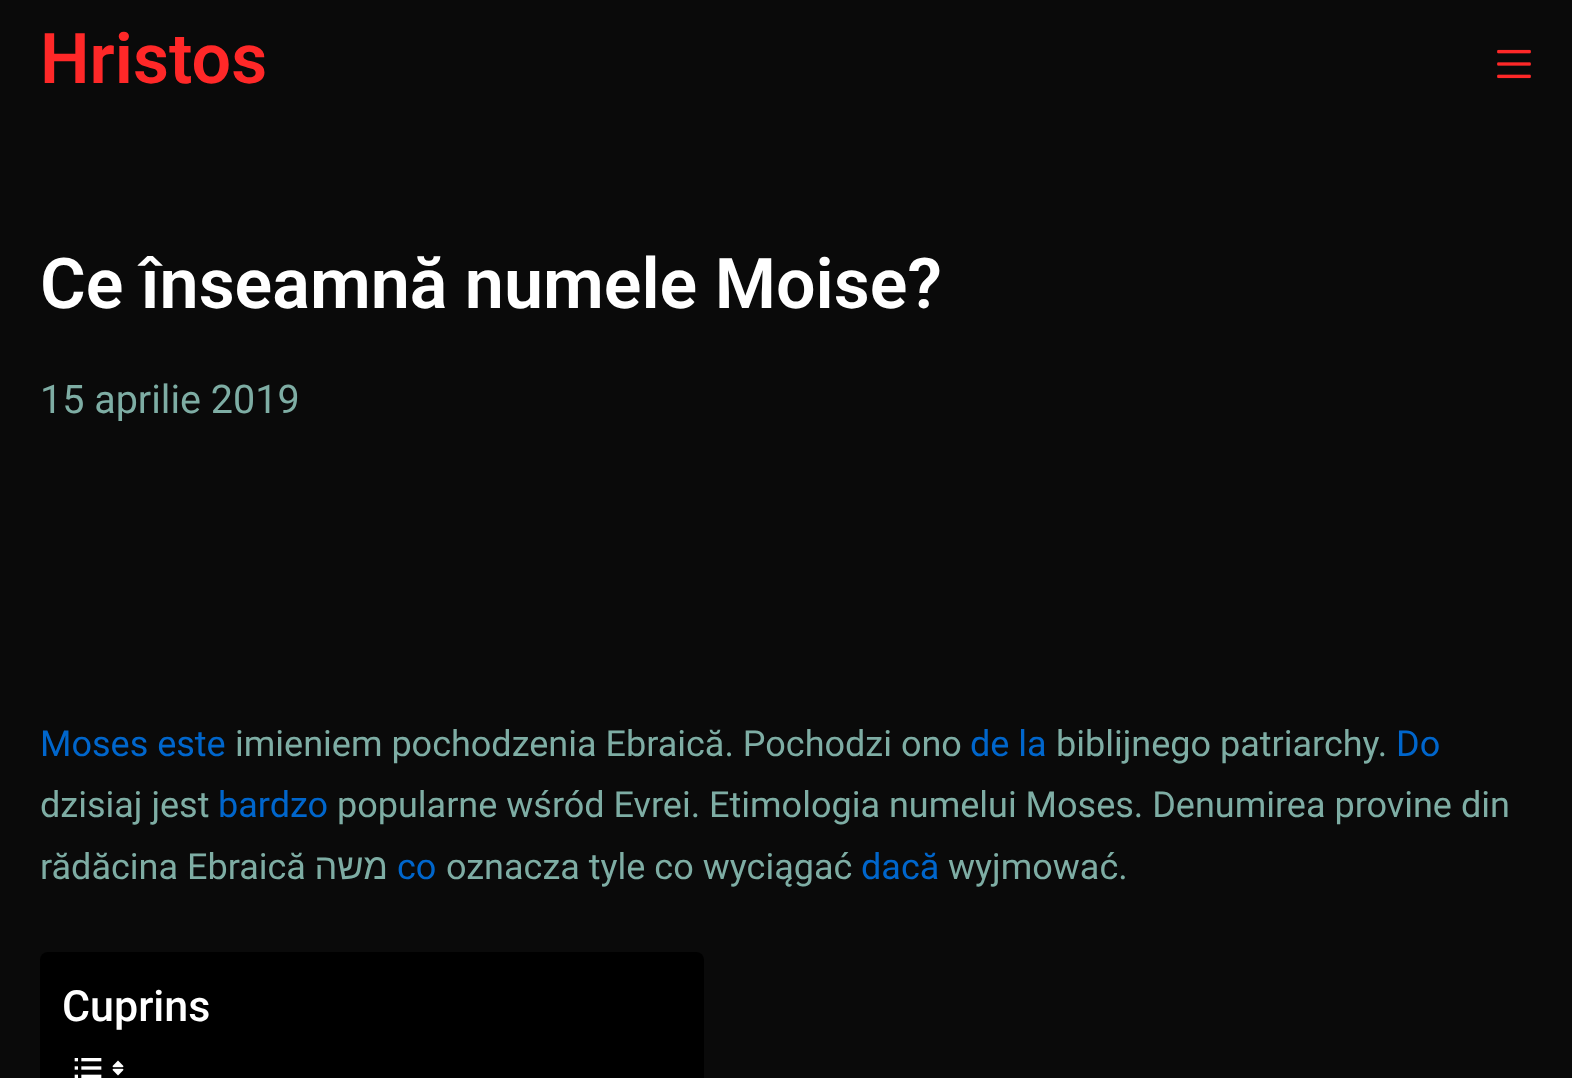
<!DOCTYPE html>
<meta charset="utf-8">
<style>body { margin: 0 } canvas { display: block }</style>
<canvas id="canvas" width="1572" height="1078"></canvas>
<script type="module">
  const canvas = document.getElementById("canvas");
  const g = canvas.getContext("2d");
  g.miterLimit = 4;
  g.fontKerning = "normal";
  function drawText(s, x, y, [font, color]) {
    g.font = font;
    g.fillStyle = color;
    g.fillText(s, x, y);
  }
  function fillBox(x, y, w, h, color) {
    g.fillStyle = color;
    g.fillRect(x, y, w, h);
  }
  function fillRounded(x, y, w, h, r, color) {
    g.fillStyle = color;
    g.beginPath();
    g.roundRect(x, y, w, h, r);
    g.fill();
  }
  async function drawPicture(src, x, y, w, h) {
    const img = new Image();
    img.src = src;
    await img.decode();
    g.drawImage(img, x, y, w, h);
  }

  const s1 = ["600 70px Roboto", "#FF2828"];
  const s2 = ["600 70px Roboto", "#FFFFFF"];
  const s3 = ["39.5px Roboto", "#7EADA4"];
  const s4 = ["36px Roboto", "#0066CC"];
  const s5 = ["36px Roboto", "#7EADA4"];
  const s6 = ["36px Liberation Sans", "#7EADA4"];
  const s7 = ["500 43px Roboto", "#FFFFFF"];

  fillBox(0, 0, 1572, 1078, "#0A0A0A");
  drawText("Hristos", 40, 83, s1);
  await drawPicture("pic1.png", 1497, 49, 34, 30);
  drawText("Ce înseamnă numele Moise?", 40, 308, s2);
  drawText("15 aprilie 2019", 40, 413, s3);
  drawText("Moses este", 40, 756, s4);
  drawText("imieniem pochodzenia Ebraică. Pochodzi ono", 235, 756, s5);
  drawText("de la", 970, 756, s4);
  drawText("biblijnego patriarchy.", 1056, 756, s5);
  drawText("Do", 1396, 756, s4);
  drawText("dzisiaj jest", 40, 817, s5);
  drawText("bardzo", 218, 817, s4);
  drawText("popularne wśród Evrei. Etimologia numelui Moses. Denumirea provine din", 337, 817, s5);
  drawText("rădăcina Ebraică", 40, 879, s5);
  g.direction = "rtl";
  drawText("משה", 388, 879, s6);
  g.direction = "ltr";
  drawText("co", 397, 879, s4);
  drawText("oznacza tyle co wyciągać", 446, 879, s5);
  drawText("dacă", 861, 879, s4);
  drawText("wyjmować.", 948, 879, s5);
  fillRounded(40, 952, 664, 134, 8, "#000000");
  drawText("Cuprins", 62, 1021, s7);
  await drawPicture("pic2.png", 74, 1058, 28, 20);
  await drawPicture("pic3.png", 112, 1060, 12, 16);
</script>
